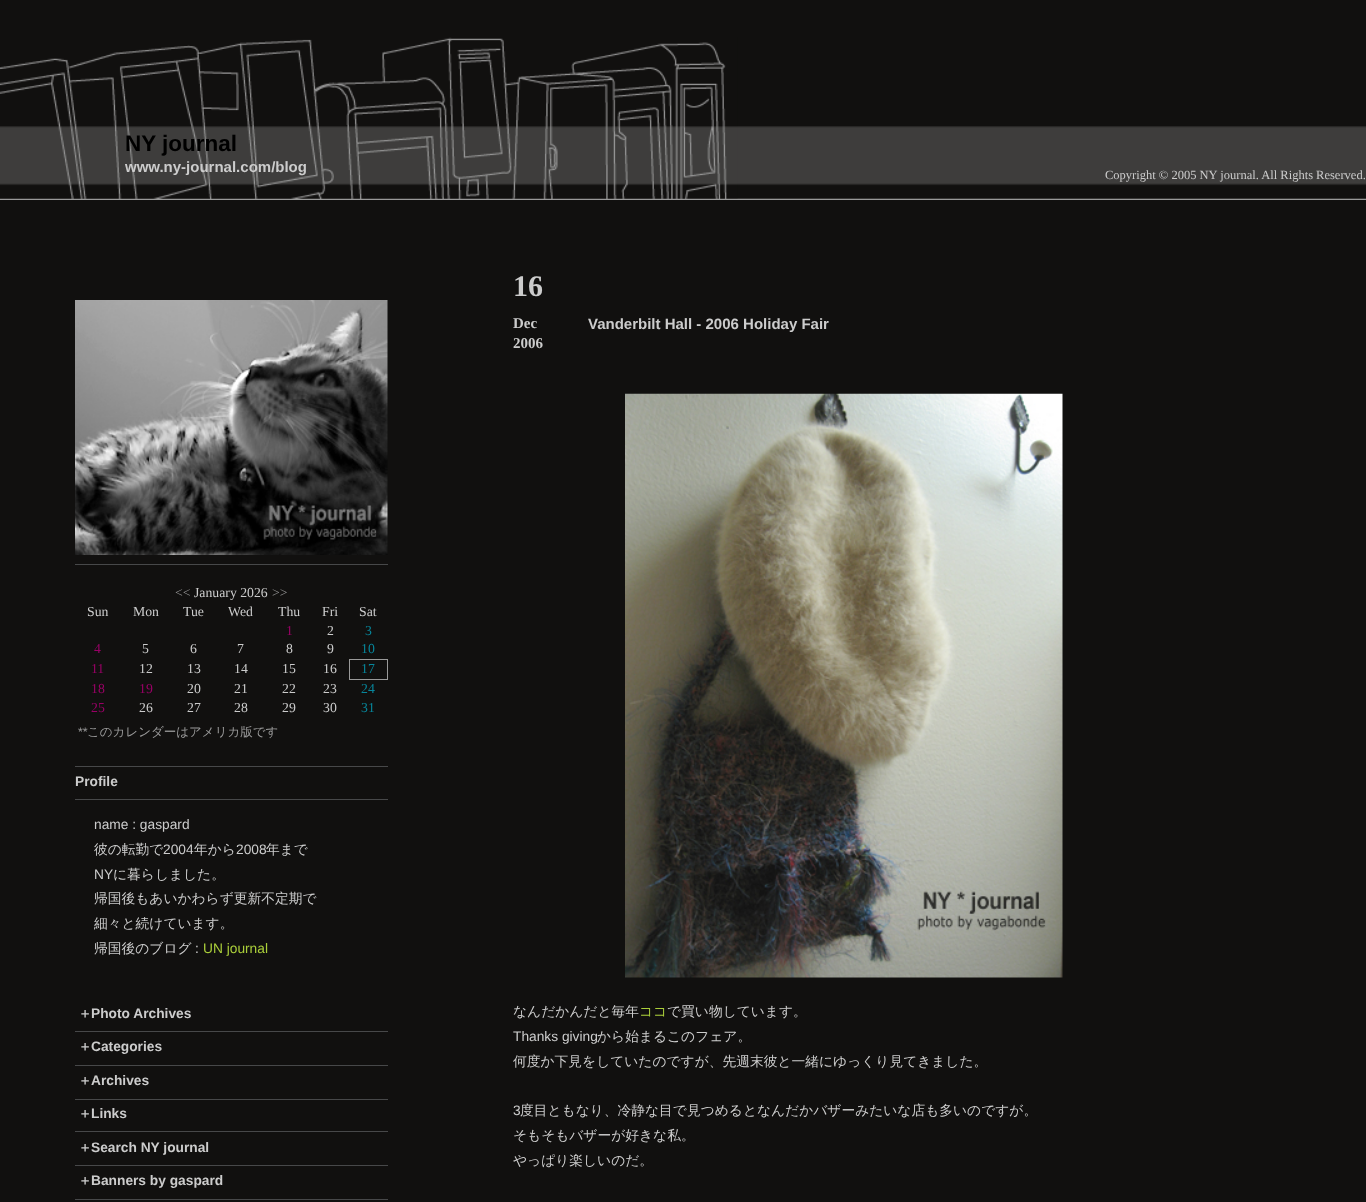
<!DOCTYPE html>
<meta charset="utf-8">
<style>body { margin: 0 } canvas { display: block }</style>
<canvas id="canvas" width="1366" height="1202"></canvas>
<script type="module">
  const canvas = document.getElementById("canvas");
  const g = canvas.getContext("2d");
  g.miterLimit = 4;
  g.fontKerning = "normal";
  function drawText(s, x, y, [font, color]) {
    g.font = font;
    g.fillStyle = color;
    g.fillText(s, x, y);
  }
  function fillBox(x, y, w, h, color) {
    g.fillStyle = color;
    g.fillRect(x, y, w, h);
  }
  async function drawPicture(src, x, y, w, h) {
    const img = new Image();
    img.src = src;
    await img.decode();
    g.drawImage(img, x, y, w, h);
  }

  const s1 = ["bold 22.5px Liberation Sans", "#000000"];
  const s2 = ["bold 15px Liberation Sans", "#CCCCCC"];
  const s3 = ["12.5px Liberation Serif", "#CCCCCC"];
  const s4 = ["13.75px Liberation Serif", "#999999"];
  const s5 = ["13.75px Liberation Serif", "#CCCCCC"];
  const s6 = ["13.75px Liberation Serif", "#990066"];
  const s7 = ["13.75px Liberation Serif", "#07869B"];
  const s8 = ["12.5px Liberation Sans", "#999999"];
  const s9 = ["500 12.5px WenQuanYi Zen Hei", "#999999"];
  const s10 = ["bold 13.75px Liberation Sans", "#CCCCCC"];
  const s11 = ["13.75px Liberation Sans", "#CCCCCC"];
  const s12 = ["500 13.75px WenQuanYi Zen Hei", "#CCCCCC"];
  const s13 = ["13.75px Liberation Sans", "#AACE3A"];
  const s14 = ["bold 13.75px WenQuanYi Zen Hei", "#CCCCCC"];
  const s15 = ["bold 30px Liberation Serif", "#CCCCCC"];
  const s16 = ["bold 15px Liberation Serif", "#CCCCCC"];
  const s17 = ["500 13.75px WenQuanYi Zen Hei", "#AACE3A"];

  fillBox(0, 0, 1366, 1202, "#11100F");
  await drawPicture("pic1.png", 0, 126, 1366, 74);
  await drawPicture("pic2.png", 0, 37, 738, 162);
  drawText("NY journal", 125, 151, s1);
  drawText("www.ny-journal.com/blog", 125, 172, s2);
  drawText("Copyright © 2005 NY journal. All Rights Reserved.", 1105, 179, s3);
  await drawPicture("pic3.png", 75, 300, 313, 255);
  fillBox(75, 564, 313, 1, "#474849");
  fillBox(75, 766, 313, 1, "#474849");
  drawText("<<", 175, 597, s4);
  drawText("January 2026", 194, 597, s5);
  drawText(">>", 272, 597, s4);
  drawText("Sun", 87, 616, s5);
  drawText("Mon", 133, 616, s5);
  drawText("Tue", 183, 616, s5);
  drawText("Wed", 228, 616, s5);
  drawText("Thu", 278, 616, s5);
  drawText("Fri", 322, 616, s5);
  drawText("Sat", 359, 616, s5);
  drawText("1", 286, 635, s6);
  drawText("2", 327, 635, s5);
  drawText("3", 365, 635, s7);
  drawText("4", 94, 653, s6);
  drawText("5", 142, 653, s5);
  drawText("6", 190, 653, s5);
  drawText("7", 237, 653, s5);
  drawText("8", 286, 653, s5);
  drawText("9", 327, 653, s5);
  drawText("10", 361, 653, s7);
  drawText("11", 91, 673, s6);
  drawText("12", 139, 673, s5);
  drawText("13", 187, 673, s5);
  drawText("14", 234, 673, s5);
  drawText("15", 282, 673, s5);
  drawText("16", 323, 673, s5);
  g.strokeStyle = "#999999";
  g.strokeRect(349.5, 659.5, 38, 20);
  drawText("17", 361, 673, s7);
  drawText("18", 91, 693, s6);
  drawText("19", 139, 693, s6);
  drawText("20", 187, 693, s5);
  drawText("21", 234, 693, s5);
  drawText("22", 282, 693, s5);
  drawText("23", 323, 693, s5);
  drawText("24", 361, 693, s7);
  drawText("25", 91, 712, s6);
  drawText("26", 139, 712, s5);
  drawText("27", 187, 712, s5);
  drawText("28", 234, 712, s5);
  drawText("29", 282, 712, s5);
  drawText("30", 323, 712, s5);
  drawText("31", 361, 712, s7);
  drawText("**", 78, 736, s8);
  drawText("このカレンダーはアメリカ版です", 87, 736, s9);
  fillBox(75, 799, 313, 1, "#474849");
  drawText("Profile", 75, 786, s10);
  drawText("name : gaspard", 94, 829, s11);
  drawText("彼の転勤で", 94, 854, s12);
  drawText("2004", 163, 854, s11);
  drawText("年から", 194, 854, s12);
  drawText("2008", 236, 854, s11);
  drawText("年まで", 266, 854, s12);
  drawText("NY", 94, 879, s11);
  drawText("に暮らしました。", 113, 879, s12);
  drawText("帰国後もあいかわらず更新不定期で", 94, 903, s12);
  drawText("細々と続けています。", 94, 928, s12);
  drawText("帰国後のブログ", 94, 953, s12);
  drawText(":", 195, 953, s11);
  drawText("UN journal", 203, 953, s13);
  fillBox(75, 1031, 313, 1, "#474849");
  drawText("＋", 78, 1018, s14);
  drawText("Photo Archives", 91, 1018, s10);
  fillBox(75, 1065, 313, 1, "#474849");
  drawText("＋", 78, 1051, s14);
  drawText("Categories", 91, 1051, s10);
  fillBox(75, 1099, 313, 1, "#474849");
  drawText("＋", 78, 1085, s14);
  drawText("Archives", 91, 1085, s10);
  fillBox(75, 1131, 313, 1, "#474849");
  drawText("＋", 78, 1118, s14);
  drawText("Links", 91, 1118, s10);
  fillBox(75, 1165, 313, 1, "#474849");
  drawText("＋", 78, 1152, s14);
  drawText("Search NY journal", 91, 1152, s10);
  fillBox(75, 1199, 313, 1, "#474849");
  drawText("＋", 78, 1185, s14);
  drawText("Banners by gaspard", 91, 1185, s10);
  drawText("16", 513, 296, s15);
  drawText("Dec", 513, 328, s16);
  drawText("2006", 513, 348, s16);
  drawText("Vanderbilt Hall - 2006 Holiday Fair", 588, 329, s2);
  await drawPicture("pic4.png", 625, 393, 438, 585);
  drawText("なんだかんだと毎年", 513, 1016, s12);
  drawText("ココ", 639, 1016, s17);
  drawText("で買い物しています。", 667, 1016, s12);
  drawText("Thanks giving", 513, 1041, s11);
  drawText("から始まるこのフェア。", 597, 1041, s12);
  drawText("何度か下見をしていたのですが、先週末彼と一緒にゆっくり見てきました。", 513, 1066, s12);
  drawText("3", 513, 1115, s11);
  drawText("度目ともなり、冷静な目で見つめるとなんだかバザーみたいな店も多いのですが。", 520, 1115, s12);
  drawText("そもそもバザーが好きな私。", 513, 1140, s12);
  drawText("やっぱり楽しいのだ。", 513, 1165, s12);
</script>
